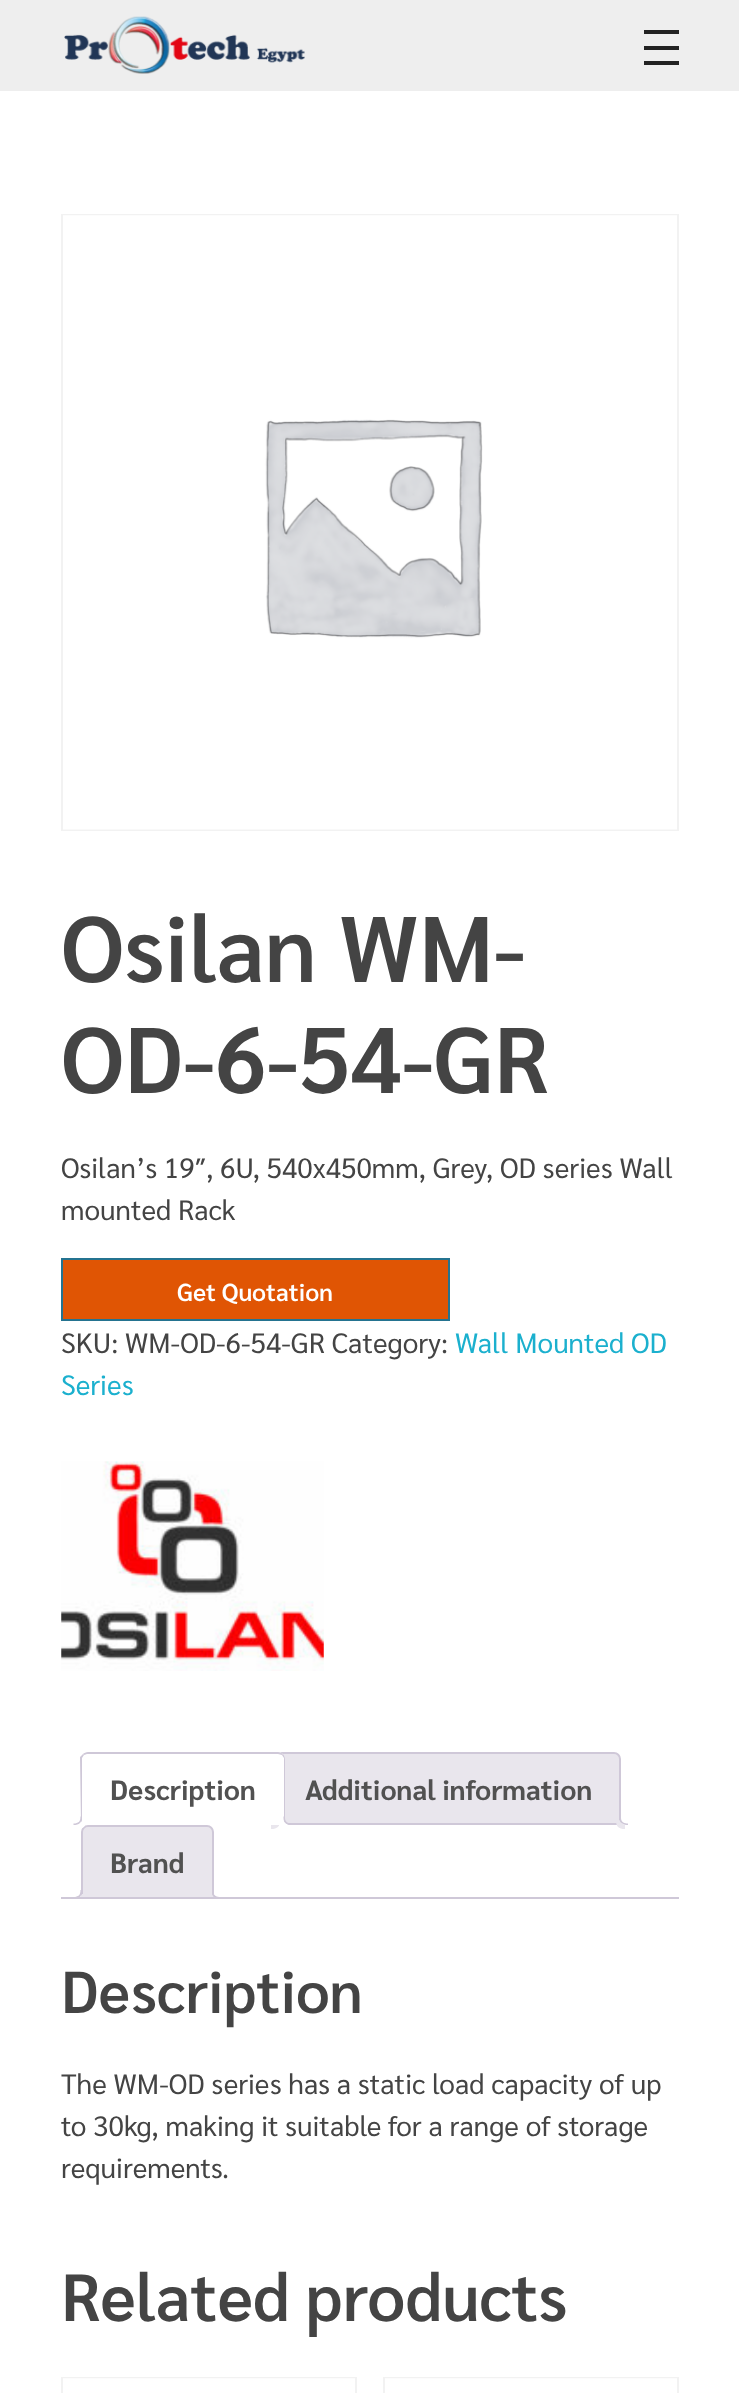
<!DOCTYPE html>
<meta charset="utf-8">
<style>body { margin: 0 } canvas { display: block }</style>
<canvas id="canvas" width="739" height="2393"></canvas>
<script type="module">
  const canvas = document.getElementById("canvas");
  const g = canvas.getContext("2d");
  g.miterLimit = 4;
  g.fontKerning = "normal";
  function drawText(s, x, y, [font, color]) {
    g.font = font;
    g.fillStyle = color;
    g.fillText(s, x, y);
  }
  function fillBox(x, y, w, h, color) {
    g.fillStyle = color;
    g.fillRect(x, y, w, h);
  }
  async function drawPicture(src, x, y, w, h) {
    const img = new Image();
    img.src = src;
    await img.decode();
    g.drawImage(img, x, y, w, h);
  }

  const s1 = ["600 92.75px Sarabun", "#444444"];
  const s2 = ["28px Sarabun", "#444444"];
  const s3 = ["600 24.5px Sarabun", "#FFFFFF"];
  const s4 = ["28px Sarabun", "#1BB0CE"];
  const s5 = ["bold 28px Sarabun", "#515151"];
  const s6 = ["600 59px Sarabun", "#444444"];
  const s7 = ["600 66.5px Sarabun", "#444444"];

  fillBox(0, 0, 739, 2393, "#FFFFFF");
  fillBox(0, 0, 739, 91, "#EEEEEE");
  await drawPicture("pic1.png", 64, 16, 241, 58);
  fillBox(644, 30, 35, 4, "#222222");
  fillBox(644, 46, 35, 4, "#222222");
  fillBox(644, 61, 35, 4, "#222222");
  g.strokeStyle = "#F2F2F2";
  g.lineWidth = 2;
  g.strokeRect(62, 215, 616, 615);
  await drawPicture("pic2.png", 63, 215, 614, 615);
  drawText("Osilan WM-", 61, 982, s1);
  drawText("OD-6-54-GR", 61, 1093, s1);
  drawText("Osilan’s 19″, 6U, 540x450mm, Grey, OD series Wall", 61, 1178, s2);
  drawText("mounted Rack", 61, 1220, s2);
  g.fillStyle = "#E05504";
  g.beginPath();
  g.rect(62, 1259, 387, 61);
  g.fill();
  g.strokeStyle = "#247390";
  g.stroke();
  drawText("Get Quotation", 177, 1301, s3);
  drawText("SKU: WM-OD-6-54-GR Category:", 61, 1353, s2);
  drawText("Wall Mounted OD", 455, 1353, s4);
  drawText("Series", 61, 1395, s4);
  await drawPicture("pic3.png", 61, 1461, 263, 210);
  g.fillStyle = "#E9E6ED";
  g.beginPath();
  g.roundRect(276, 1753, 344, 71, [6, 6, 0, 0]);
  g.fill();
  g.strokeStyle = "#CFC8D8";
  g.stroke();
  g.beginPath();
  g.moveTo(271, 1825);
  g.lineTo(271, 1829);
  g.bezierCurveTo(277.5, 1829, 280, 1826.5, 280, 1820);
  g.lineTo(276.5, 1820);
  g.bezierCurveTo(275.5, 1822.5, 273.5, 1824.5, 271, 1825);
  g.closePath();
  g.fill();
  g.fillStyle = "#FFFFFF";
  g.beginPath();
  g.roundRect(81, 1752, 204, 73, [7, 7, 0, 0]);
  g.fill();
  g.fillStyle = "#CFC8D8";
  g.beginPath();
  g.moveTo(88, 1752);
  g.bezierCurveTo(86, 1752, 84, 1753, 83, 1754);
  g.lineTo(84, 1755);
  g.lineTo(87, 1754);
  g.lineTo(278, 1754);
  g.lineTo(282, 1755);
  g.lineTo(283, 1754);
  g.bezierCurveTo(282, 1753, 280, 1752, 278, 1752);
  g.closePath();
  g.fill();
  g.beginPath();
  g.moveTo(285, 1825);
  g.lineTo(285, 1759);
  g.bezierCurveTo(285, 1757, 284, 1755, 283, 1754);
  g.lineTo(282, 1755);
  g.lineTo(284, 1758);
  g.lineTo(284, 1824);
  g.closePath();
  g.fill();
  g.fillStyle = "#FFFFFF";
  g.beginPath();
  g.moveTo(285, 1825);
  g.lineTo(284, 1824);
  g.lineTo(82, 1824);
  g.lineTo(81, 1825);
  g.closePath();
  g.fill();
  g.fillStyle = "#CFC8D8";
  g.beginPath();
  g.moveTo(80, 1757);
  g.lineTo(83, 1754);
  g.lineTo(84, 1755);
  g.lineTo(82, 1758);
  g.lineTo(82, 1824);
  g.lineTo(81, 1825);
  g.closePath();
  g.fill();
  drawText("Description", 110, 1800, s5);
  g.fillStyle = "#E9E6ED";
  g.beginPath();
  g.roundRect(82, 1826, 131, 72, [6, 6, 0, 0]);
  g.fill();
  g.stroke();
  g.fillStyle = "#FFFFFF";
  g.beginPath();
  g.moveTo(77, 1825);
  g.lineTo(77, 1829);
  g.bezierCurveTo(83.5, 1829, 86, 1826.5, 86, 1820);
  g.lineTo(82, 1820);
  g.bezierCurveTo(81.5, 1822.5, 79.5, 1824.5, 77, 1825);
  g.closePath();
  g.fill();
  g.fillStyle = "#CFC8D8";
  g.beginPath();
  g.moveTo(73.5, 1816.5);
  g.lineTo(82, 1816.5);
  g.bezierCurveTo(82, 1822.5, 79.5, 1825, 73.5, 1825);
  g.closePath();
  g.moveTo(73.5, 1816.5);
  g.lineTo(80.5, 1816.5);
  g.bezierCurveTo(80.5, 1821.5, 78.5, 1823.5, 73.5, 1823.5);
  g.closePath();
  g.fill("evenodd");
  g.fillStyle = "#FFFFFF";
  g.beginPath();
  g.moveTo(280, 1820);
  g.bezierCurveTo(280, 1826.5, 282.5, 1829, 289, 1829);
  g.lineTo(289, 1825);
  g.bezierCurveTo(286.5, 1824.5, 284.5, 1822.5, 283.5, 1820);
  g.closePath();
  g.fill();
  g.fillStyle = "#CFC8D8";
  g.beginPath();
  g.moveTo(283.5, 1816.5);
  g.lineTo(292, 1816.5);
  g.lineTo(292, 1825);
  g.bezierCurveTo(288, 1825, 283.5, 1823.5, 283.5, 1818);
  g.closePath();
  g.moveTo(285, 1816.5);
  g.lineTo(292, 1816.5);
  g.lineTo(292, 1823.5);
  g.bezierCurveTo(289, 1823.5, 285, 1822.5, 285, 1818);
  g.closePath();
  g.fill("evenodd");
  drawText("Additional information", 305, 1800, s5);
  g.fillStyle = "#E9E6ED";
  g.beginPath();
  g.moveTo(616, 1820);
  g.bezierCurveTo(616, 1826.5, 618.5, 1829, 625, 1829);
  g.lineTo(625, 1825);
  g.bezierCurveTo(622.5, 1824.5, 620.5, 1822.5, 619.5, 1820);
  g.closePath();
  g.fill();
  g.fillStyle = "#CFC8D8";
  g.beginPath();
  g.moveTo(619.5, 1816.5);
  g.lineTo(628, 1816.5);
  g.lineTo(628, 1825);
  g.bezierCurveTo(624, 1825, 619.5, 1823.5, 619.5, 1818);
  g.closePath();
  g.moveTo(621, 1816.5);
  g.lineTo(628, 1816.5);
  g.lineTo(628, 1823.5);
  g.bezierCurveTo(625, 1823.5, 621, 1822.5, 621, 1818);
  g.closePath();
  g.fill("evenodd");
  drawText("Brand", 110, 1873, s5);
  g.save();
  g.beginPath();
  g.rect(61, 1752, 618, 147);
  g.clip();
  g.fillStyle = "#E9E6ED";
  g.beginPath();
  g.moveTo(77, 1898.5);
  g.lineTo(77, 1902);
  g.bezierCurveTo(82.5, 1902, 86, 1900, 86, 1894);
  g.lineTo(82, 1894);
  g.bezierCurveTo(81, 1896, 79.5, 1898, 77, 1898.5);
  g.closePath();
  g.fill();
  g.restore();
  g.fillStyle = "#CFC8D8";
  g.beginPath();
  g.moveTo(73.5, 1890);
  g.lineTo(82, 1890);
  g.bezierCurveTo(82, 1896, 79.5, 1899, 73.5, 1899);
  g.closePath();
  g.moveTo(73.5, 1890);
  g.lineTo(80.5, 1890);
  g.bezierCurveTo(80.5, 1895, 78.5, 1897, 73.5, 1897);
  g.closePath();
  g.fill("evenodd");
  g.save();
  g.beginPath();
  g.rect(61, 1752, 618, 147);
  g.clip();
  g.fillStyle = "#E9E6ED";
  g.beginPath();
  g.moveTo(208, 1894);
  g.bezierCurveTo(208, 1900, 211.5, 1902, 217, 1902);
  g.lineTo(217, 1898.5);
  g.bezierCurveTo(214.5, 1898, 213, 1896, 212, 1894);
  g.closePath();
  g.fill();
  g.restore();
  g.beginPath();
  g.moveTo(212, 1890);
  g.lineTo(220.5, 1890);
  g.lineTo(220.5, 1899);
  g.bezierCurveTo(216, 1899, 212, 1897, 212, 1892);
  g.closePath();
  g.moveTo(213.5, 1890);
  g.lineTo(220.5, 1890);
  g.lineTo(220.5, 1897);
  g.bezierCurveTo(217, 1897, 213.5, 1896, 213.5, 1892);
  g.closePath();
  g.fill("evenodd");
  fillBox(61, 1897, 618, 2, "#CFC8D8");
  drawText("Description", 61, 2013, s6);
  drawText("The WM-OD series has a static load capacity of up", 61, 2094, s2);
  drawText("to 30kg, making it suitable for a range of storage", 61, 2136, s2);
  drawText("requirements.", 61, 2178, s2);
  drawText("Related products", 61, 2321, s7);
  g.strokeStyle = "#F2F2F2";
  g.strokeRect(62, 2378, 294, 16);
  fillBox(63, 2378, 292, 1, "#FCFCFC");
  g.strokeRect(384, 2378, 294, 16);
  fillBox(385, 2378, 292, 1, "#FCFCFC");
</script>
